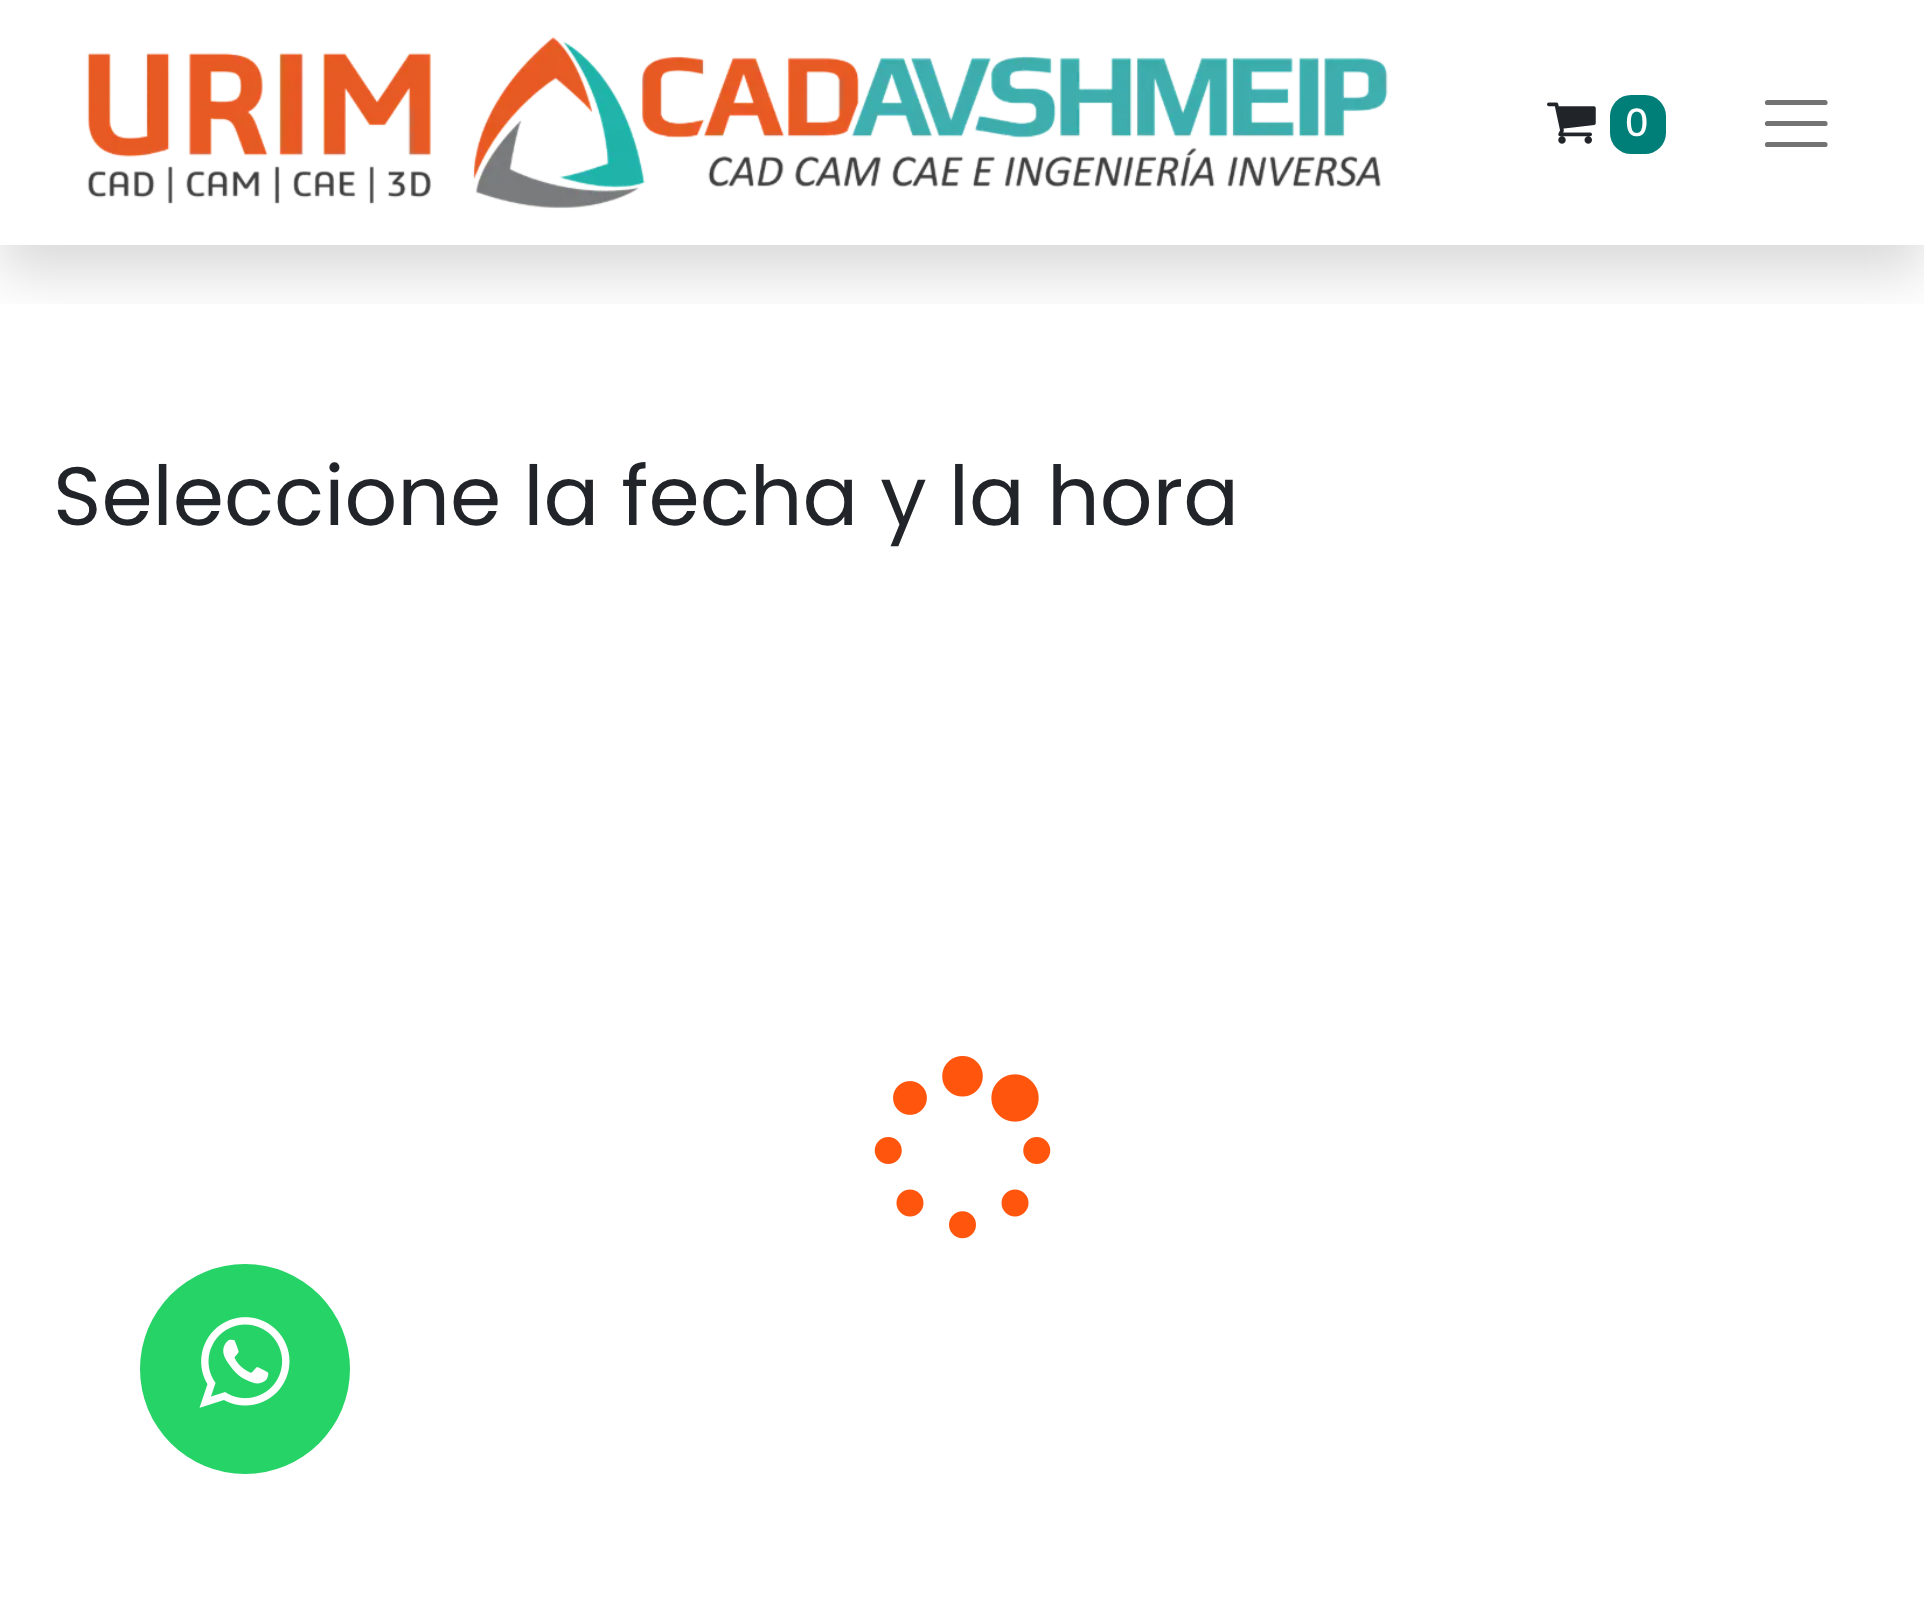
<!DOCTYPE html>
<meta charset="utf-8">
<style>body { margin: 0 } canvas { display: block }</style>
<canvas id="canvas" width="1924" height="1612"></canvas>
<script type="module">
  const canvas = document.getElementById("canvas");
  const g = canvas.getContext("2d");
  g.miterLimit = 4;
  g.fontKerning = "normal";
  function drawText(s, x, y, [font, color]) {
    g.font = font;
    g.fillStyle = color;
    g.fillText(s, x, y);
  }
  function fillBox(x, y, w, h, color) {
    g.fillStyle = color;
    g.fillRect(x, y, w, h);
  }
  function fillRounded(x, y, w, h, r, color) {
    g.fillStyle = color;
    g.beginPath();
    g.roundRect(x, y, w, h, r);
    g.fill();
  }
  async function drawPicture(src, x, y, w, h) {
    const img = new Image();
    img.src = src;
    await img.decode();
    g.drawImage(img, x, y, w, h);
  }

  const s1 = ["600 39px Nunito Sans", "#FFFFFF"];
  const s2 = ["82.5px Poppins", "#212529"];

  fillBox(0, 0, 1924, 1612, "#FFFFFF");
  g.save();
  g.beginPath();
  g.rect(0, 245, 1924, 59);
  g.clip();
  g.fillStyle = "rgba(0, 0, 0, 0.15)";
  g.filter = "blur(28px)";
  g.beginPath();
  g.rect(0, 28, 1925, 245);
  g.fill();
  g.filter = "none";
  g.restore();
  await drawPicture("pic1.png", 87, 37, 1301, 172);
  await drawPicture("pic2.png", 1547, 102, 49, 42);
  fillRounded(1610, 95, 56, 59, 21, "#007E78");
  drawText("0", 1625, 136, s1);
  g.beginPath();
  g.moveTo(1767.5, 102.5);
  g.lineTo(1825, 102.5);
  g.moveTo(1767.5, 123.5);
  g.lineTo(1825, 123.5);
  g.moveTo(1767.5, 144.5);
  g.lineTo(1825, 144.5);
  g.strokeStyle = "#737373";
  g.lineWidth = 5.2;
  g.lineCap = "round";
  g.stroke();
  drawText("Seleccione la fecha y la hora", 53, 525, s2);
  await drawPicture("pic3.png", 874, 1056, 177, 183);
  g.fillStyle = "#25D366";
  g.beginPath();
  g.arc(245, 1369, 105, 0, Math.PI * 2);
  g.fill();
  await drawPicture("pic4.png", 199, 1317, 91, 91);
</script>
